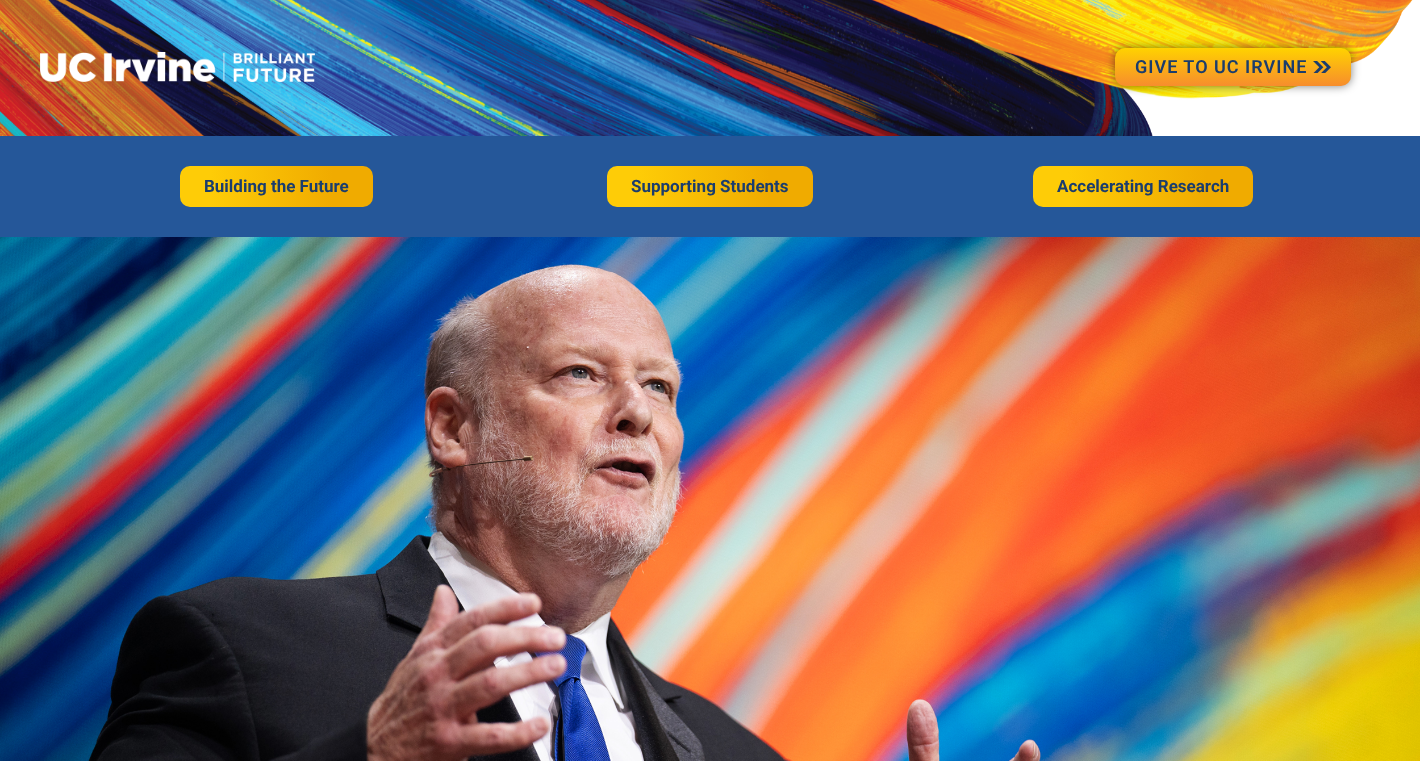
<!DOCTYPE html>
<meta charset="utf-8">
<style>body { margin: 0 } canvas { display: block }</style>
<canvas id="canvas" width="1420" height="761"></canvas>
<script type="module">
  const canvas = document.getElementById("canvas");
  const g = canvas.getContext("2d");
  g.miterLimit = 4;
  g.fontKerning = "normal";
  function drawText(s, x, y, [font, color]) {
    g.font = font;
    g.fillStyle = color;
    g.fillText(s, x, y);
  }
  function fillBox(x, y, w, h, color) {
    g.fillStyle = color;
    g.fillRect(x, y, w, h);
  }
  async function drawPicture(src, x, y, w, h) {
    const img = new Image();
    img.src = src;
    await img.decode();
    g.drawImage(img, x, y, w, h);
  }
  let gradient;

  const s1 = ["600 18px Roboto", "#1B3D6D"];
  const s2 = ["bold 17px Roboto", "#1B3D6D"];

  fillBox(0, 0, 1420, 761, "#FFFFFF");
  await drawPicture("pic1.png", 0, 0, 1413, 136);
  await drawPicture("pic2.png", 40, 52, 275, 30);
  g.fillStyle = "rgba(0, 0, 0, 0.5)";
  g.filter = "blur(5px)";
  g.beginPath();
  g.roundRect(1115, 48, 236, 38, 10);
  g.fill();
  g.filter = "none";
  gradient = g.createLinearGradient(1233, 48, 1233, 86);
  gradient.addColorStop(0, "#FFD200");
  gradient.addColorStop(1, "#F78D2D");
  g.fillStyle = gradient;
  g.beginPath();
  g.roundRect(1115, 48, 236, 38, 10);
  g.fill();
  g.letterSpacing = "1px";
  drawText("GIVE TO UC IRVINE", 1135, 73, s1);
  await drawPicture("pic3.png", 1313, 61, 18, 12);
  fillBox(0, 136, 1420, 101, "#255799");
  gradient = g.createLinearGradient(180, 188, 373, 185);
  gradient.addColorStop(0.16, "#FECC07");
  gradient.addColorStop(0.79, "#F0AB00");
  g.fillStyle = gradient;
  g.beginPath();
  g.roundRect(180, 166, 193, 41, 10);
  g.fill();
  g.letterSpacing = "0px";
  drawText("Building the Future", 204, 192, s2);
  gradient = g.createLinearGradient(607, 188, 813, 185);
  gradient.addColorStop(0.16, "#FECC07");
  gradient.addColorStop(0.79, "#F0AB00");
  g.fillStyle = gradient;
  g.beginPath();
  g.roundRect(607, 166, 206, 41, 10);
  g.fill();
  drawText("Supporting Students", 631, 192, s2);
  gradient = g.createLinearGradient(1033, 188, 1253, 185);
  gradient.addColorStop(0.16, "#FECC07");
  gradient.addColorStop(0.79, "#F0AB00");
  g.fillStyle = gradient;
  g.beginPath();
  g.roundRect(1033, 166, 220, 41, 10);
  g.fill();
  drawText("Accelerating Research", 1057, 192, s2);
  await drawPicture("pic4.png", 0, 237, 1420, 524);
</script>
